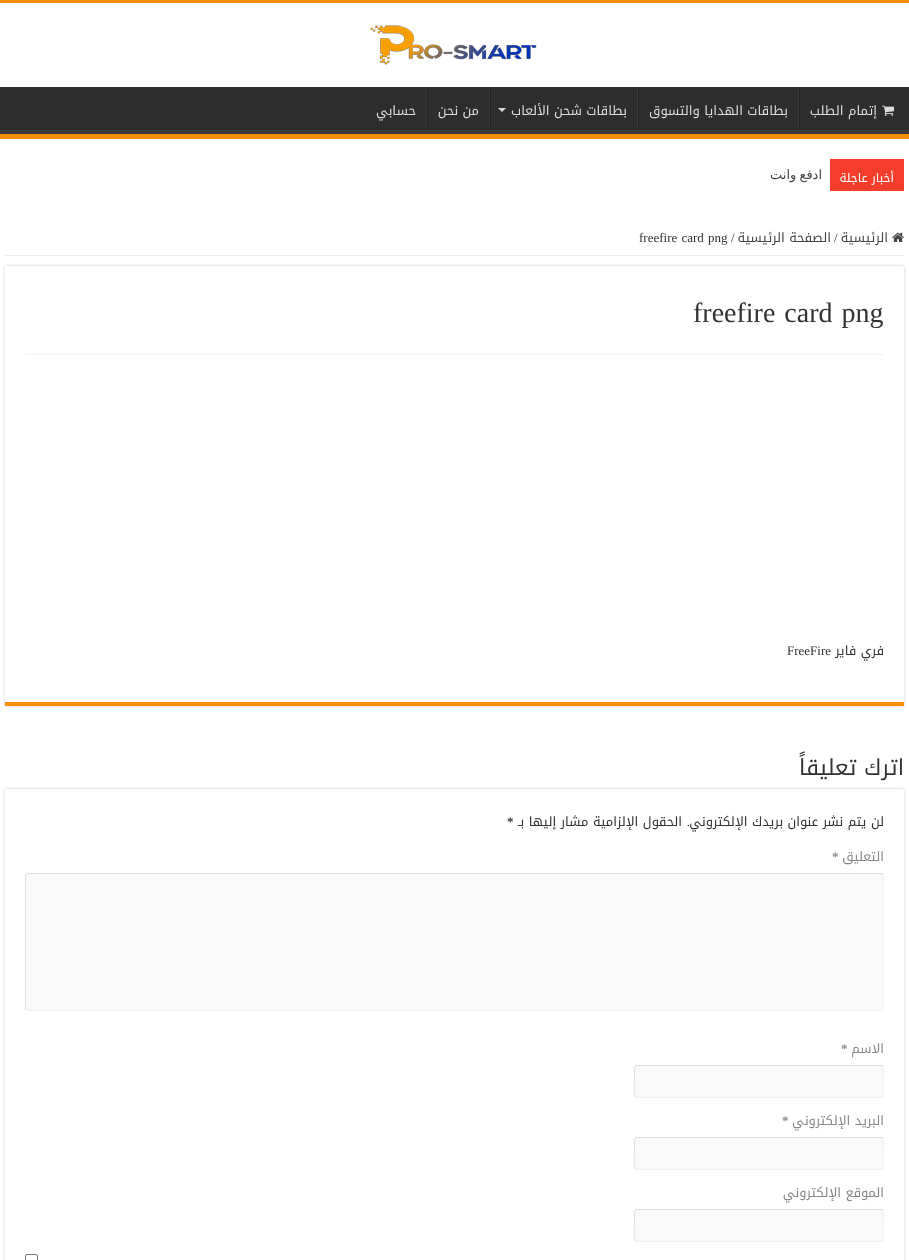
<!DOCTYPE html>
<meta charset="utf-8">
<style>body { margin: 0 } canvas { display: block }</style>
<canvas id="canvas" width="909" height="1260"></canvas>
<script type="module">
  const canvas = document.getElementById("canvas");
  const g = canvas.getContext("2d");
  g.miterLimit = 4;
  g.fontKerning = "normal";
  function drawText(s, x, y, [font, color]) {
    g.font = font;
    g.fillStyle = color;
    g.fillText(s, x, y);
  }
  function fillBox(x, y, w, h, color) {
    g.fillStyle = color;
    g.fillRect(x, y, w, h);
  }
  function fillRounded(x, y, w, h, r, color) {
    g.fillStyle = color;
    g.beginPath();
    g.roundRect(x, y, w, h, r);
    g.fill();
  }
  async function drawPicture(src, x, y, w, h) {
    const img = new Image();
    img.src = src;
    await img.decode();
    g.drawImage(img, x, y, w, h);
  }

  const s1 = ["13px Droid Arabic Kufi", "#DDDDDD"];
  const s2 = ["12px Droid Arabic Kufi", "#FFFFFF"];
  const s3 = ["13px DejaVu Sans", "#444444"];
  const s4 = ["13px Droid Arabic Kufi", "#444444"];
  const s5 = ["13px Liberation Serif", "#333333"];
  const s6 = ["28px Liberation Serif", "#333333"];
  const s7 = ["13px Droid Arabic Kufi", "#333333"];
  const s8 = ["22px Droid Arabic Kufi", "#333333"];
  const s9 = ["bold 13px Liberation Serif", "#333333"];
  const s10 = ["13px Droid Arabic Kufi", "#888888"];
  const s11 = ["bold 13px Liberation Serif", "#888888"];

  fillBox(0, 0, 909, 1260, "#FFFFFF");
  fillBox(0, 0, 909, 3, "#F88C00");
  await drawPicture("pic1.png", 370, 25, 167, 40);
  fillBox(0, 87, 909, 43, "#2D2D2D");
  g.save();
  g.beginPath();
  g.rect(0, 87, 909, 47);
  g.clip();
  g.fillStyle = "#393939";
  g.beginPath();
  g.moveTo(-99, -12);
  g.lineTo(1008, -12);
  g.lineTo(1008, 233);
  g.lineTo(-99, 233);
  g.closePath();
  g.moveTo(-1, 81);
  g.lineTo(908, 81);
  g.lineTo(909, 82);
  g.lineTo(909, 129);
  g.lineTo(908, 130);
  g.lineTo(-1, 130);
  g.lineTo(-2, 129);
  g.lineTo(-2, 81);
  g.closePath();
  g.fill("evenodd");
  g.restore();
  fillBox(0, 134, 909, 5, "#F88C00");
  await drawPicture("pic2.png", 882, 105, 13, 11);
  g.direction = "rtl";
  drawText("إتمام الطلب", 877, 115, s1);
  fillBox(799, 87, 1, 42, "#222222");
  fillBox(798, 87, 1, 42, "#383838");
  drawText("بطاقات الهدايا والتسوق", 788, 115, s1);
  fillBox(638, 87, 1, 42, "#222222");
  fillBox(637, 87, 1, 42, "#383838");
  drawText("بطاقات شحن الألعاب", 627, 115, s1);
  g.beginPath();
  g.moveTo(498, 108);
  g.lineTo(506, 108);
  g.lineTo(502, 112);
  g.closePath();
  g.fill();
  fillBox(490, 87, 1, 42, "#222222");
  fillBox(489, 87, 1, 42, "#383838");
  drawText("من نحن", 479, 115, s1);
  fillBox(427, 87, 1, 42, "#222222");
  fillBox(426, 87, 1, 42, "#383838");
  drawText("حسابي", 416, 115, s1);
  fillBox(830, 159, 74, 32, "#F43D2A");
  drawText("أخبار عاجلة", 894, 182, s2);
  g.wordSpacing = "-1px";
  drawText("ادفع وانت", 822, 179, s3);
  fillBox(5, 255, 899, 1, "#EEEEEE");
  await drawPicture("pic3.png", 892, 232, 12, 10);
  g.wordSpacing = "0px";
  drawText("الرئيسية", 888, 242, s4);
  g.direction = "ltr";
  drawText("/", 834, 242, s5);
  g.direction = "rtl";
  drawText("الصفحة الرئيسية", 831, 242, s4);
  g.direction = "ltr";
  drawText("/", 731, 242, s5);
  g.wordSpacing = "1px";
  drawText("freefire card png", 639, 242, s5);
  g.save();
  g.beginPath();
  g.moveTo(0, 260);
  g.lineTo(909, 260);
  g.lineTo(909, 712);
  g.lineTo(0, 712);
  g.closePath();
  g.moveTo(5, 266);
  g.lineTo(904, 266);
  g.lineTo(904, 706);
  g.lineTo(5, 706);
  g.closePath();
  g.clip("evenodd");
  g.fillStyle = "#CACACA";
  g.filter = "blur(1.5px)";
  g.beginPath();
  g.rect(5, 266, 899, 440);
  g.fill();
  g.filter = "none";
  g.restore();
  fillBox(5, 702, 899, 4, "#F88C00");
  g.wordSpacing = "2px";
  drawText("freefire card png", 693, 322, s6);
  fillBox(25, 354, 859, 1, "#F2F2F2");
  g.wordSpacing = "0px";
  g.direction = "rtl";
  drawText("فري فاير", 884, 655, s7);
  g.direction = "ltr";
  drawText("FreeFire", 787, 655, s5);
  g.direction = "rtl";
  drawText("اترك تعليقاً", 904, 775, s8);
  g.save();
  g.beginPath();
  g.moveTo(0, 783);
  g.lineTo(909, 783);
  g.lineTo(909, 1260);
  g.lineTo(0, 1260);
  g.closePath();
  g.moveTo(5, 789);
  g.lineTo(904, 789);
  g.lineTo(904, 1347);
  g.lineTo(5, 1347);
  g.closePath();
  g.clip("evenodd");
  g.fillStyle = "#CACACA";
  g.filter = "blur(1.5px)";
  g.beginPath();
  g.rect(5, 789, 899, 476);
  g.fill();
  g.filter = "none";
  g.restore();
  drawText("لن يتم نشر عنوان بريدك الإلكتروني", 884, 826, s7);
  drawText("الحقول الإلزامية مشار إليها بـ", 682, 826, s7);
  g.direction = "ltr";
  drawText("*", 507, 826, s9);
  g.direction = "rtl";
  drawText(".", 690, 826, s5);
  drawText("التعليق", 884, 861, s10);
  g.direction = "ltr";
  drawText("*", 832, 861, s11);
  fillRounded(25, 873, 859, 138, 3, "#F9F9F9");
  g.beginPath();
  g.moveTo(883, 874);
  g.lineTo(883.5, 876);
  g.lineTo(883.5, 1008);
  g.bezierCurveTo(883.5, 1009.5, 882.5, 1010.5, 881, 1010.5);
  g.lineTo(28, 1010.5);
  g.lineTo(26, 1010);
  g.strokeStyle = "#F1F1F1";
  g.stroke();
  g.beginPath();
  g.moveTo(26, 1010);
  g.lineTo(25.5, 1008);
  g.lineTo(25.5, 876);
  g.bezierCurveTo(25.5, 874.5, 26.5, 873.5, 28, 873.5);
  g.lineTo(881, 873.5);
  g.lineTo(883, 874);
  g.strokeStyle = "#DDDDDD";
  g.stroke();
  g.direction = "rtl";
  drawText("الاسم", 884, 1053, s10);
  g.direction = "ltr";
  drawText("*", 841, 1053, s11);
  fillRounded(634, 1065, 250, 33, 3, "#F9F9F9");
  g.beginPath();
  g.moveTo(883, 1066);
  g.bezierCurveTo(884.5, 1068, 883.5, 1083, 883.5, 1086);
  g.lineTo(883.5, 1090.5);
  g.bezierCurveTo(883.5, 1092.5, 884.5, 1097.5, 881, 1097.5);
  g.lineTo(636.5, 1097.5);
  g.lineTo(635, 1097);
  g.strokeStyle = "#F1F1F1";
  g.stroke();
  g.beginPath();
  g.moveTo(635, 1097);
  g.bezierCurveTo(633.5, 1095, 634.5, 1080, 634.5, 1077);
  g.lineTo(634.5, 1072.5);
  g.bezierCurveTo(634.5, 1070.5, 633.5, 1065.5, 637, 1065.5);
  g.lineTo(881.5, 1065.5);
  g.lineTo(883, 1066);
  g.strokeStyle = "#DDDDDD";
  g.stroke();
  g.direction = "rtl";
  drawText("البريد الإلكتروني", 884, 1125, s10);
  g.direction = "ltr";
  drawText("*", 782, 1125, s11);
  fillRounded(634, 1137, 250, 33, 3, "#F9F9F9");
  g.beginPath();
  g.moveTo(883, 1138);
  g.bezierCurveTo(884.5, 1140, 883.5, 1155, 883.5, 1158);
  g.lineTo(883.5, 1162.5);
  g.bezierCurveTo(883.5, 1164.5, 884.5, 1169.5, 881, 1169.5);
  g.lineTo(636.5, 1169.5);
  g.lineTo(635, 1169);
  g.strokeStyle = "#F1F1F1";
  g.stroke();
  g.beginPath();
  g.moveTo(635, 1169);
  g.bezierCurveTo(633.5, 1167, 634.5, 1152, 634.5, 1149);
  g.lineTo(634.5, 1144.5);
  g.bezierCurveTo(634.5, 1142.5, 633.5, 1137.5, 637, 1137.5);
  g.lineTo(881.5, 1137.5);
  g.lineTo(883, 1138);
  g.strokeStyle = "#DDDDDD";
  g.stroke();
  g.direction = "rtl";
  drawText("الموقع الإلكتروني", 884, 1197, s10);
  fillRounded(634, 1209, 250, 33, 3, "#F9F9F9");
  g.beginPath();
  g.moveTo(883, 1210);
  g.bezierCurveTo(884.5, 1212, 883.5, 1227, 883.5, 1230);
  g.lineTo(883.5, 1234.5);
  g.bezierCurveTo(883.5, 1236.5, 884.5, 1241.5, 881, 1241.5);
  g.lineTo(636.5, 1241.5);
  g.lineTo(635, 1241);
  g.strokeStyle = "#F1F1F1";
  g.stroke();
  g.beginPath();
  g.moveTo(635, 1241);
  g.bezierCurveTo(633.5, 1239, 634.5, 1224, 634.5, 1221);
  g.lineTo(634.5, 1216.5);
  g.bezierCurveTo(634.5, 1214.5, 633.5, 1209.5, 637, 1209.5);
  g.lineTo(881.5, 1209.5);
  g.lineTo(883, 1210);
  g.strokeStyle = "#DDDDDD";
  g.stroke();
  g.beginPath();
  g.roundRect(25.5, 1254.5, 12, 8, 1.5);
  g.strokeStyle = "#767676";
  g.stroke();
</script>
